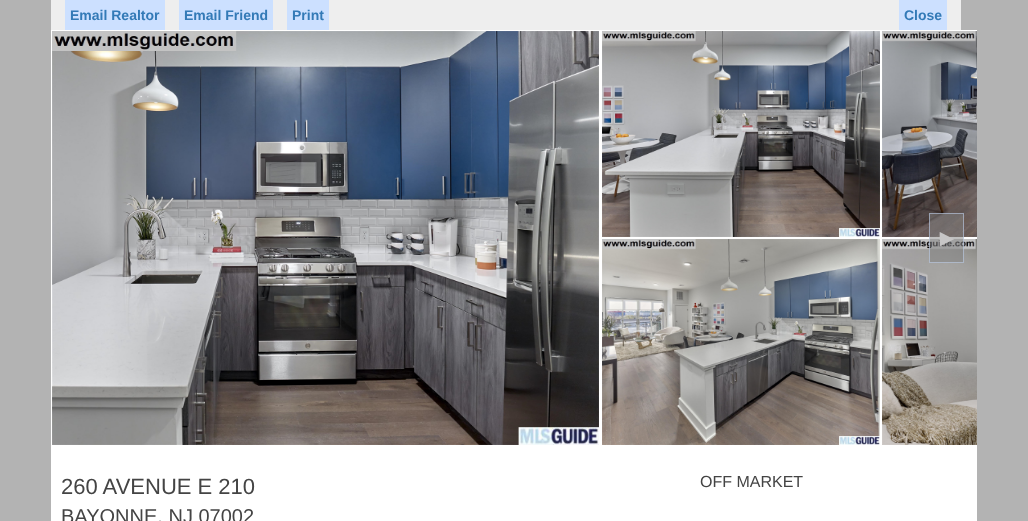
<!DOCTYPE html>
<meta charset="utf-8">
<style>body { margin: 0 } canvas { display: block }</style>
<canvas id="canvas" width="1028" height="521"></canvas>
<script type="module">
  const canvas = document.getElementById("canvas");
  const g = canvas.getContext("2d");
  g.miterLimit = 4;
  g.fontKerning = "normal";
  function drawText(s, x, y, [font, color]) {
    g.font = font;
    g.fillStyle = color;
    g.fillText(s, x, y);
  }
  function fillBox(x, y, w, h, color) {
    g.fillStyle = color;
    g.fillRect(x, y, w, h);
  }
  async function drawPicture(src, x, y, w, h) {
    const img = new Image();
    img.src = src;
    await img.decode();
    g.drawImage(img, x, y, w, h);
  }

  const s1 = ["bold 14px Liberation Sans", "#337AB7"];
  const s2 = ["24px Liberation Sans", "#C7C6C6"];
  const s3 = ["22px Liberation Sans", "#444444"];
  const s4 = ["20px Liberation Sans", "#444444"];
  const s5 = ["16px Liberation Sans", "#444444"];

  fillBox(0, 0, 1028, 521, "#B3B3B3");
  fillBox(51, 30, 926, 491, "#FFFFFF");
  fillBox(51, 0, 910, 30, "#EEEEEE");
  fillBox(65, 0, 100, 30, "#CCE0FF");
  drawText("Email Realtor", 70, 20, s1);
  fillBox(179, 0, 94, 30, "#CCE0FF");
  drawText("Email Friend", 184, 20, s1);
  fillBox(287, 0, 42, 30, "#CCE0FF");
  drawText("Print", 292, 20, s1);
  fillBox(899, 0, 48, 30, "#CCE0FF");
  drawText("Close", 904, 20, s1);
  await drawPicture("pic1.png", 52, 31, 547, 414);
  await drawPicture("pic2.png", 602, 31, 278, 206);
  await drawPicture("pic3.png", 602, 239, 278, 206);
  await drawPicture("pic4.png", 882, 31, 95, 206);
  await drawPicture("pic5.png", 882, 239, 95, 206);
  fillBox(929, 213, 35, 50, "rgba(128, 128, 128, 0.5)");
  g.strokeStyle = "rgba(204, 224, 255, 0.5)";
  g.strokeRect(929.5, 213.5, 34, 49);
  drawText("►", 935, 246, s2);
  drawText("260 AVENUE E 210", 61, 494, s3);
  drawText("BAYONNE, NJ 07002", 61, 523, s4);
  drawText("OFF MARKET", 700, 487, s5);
</script>
